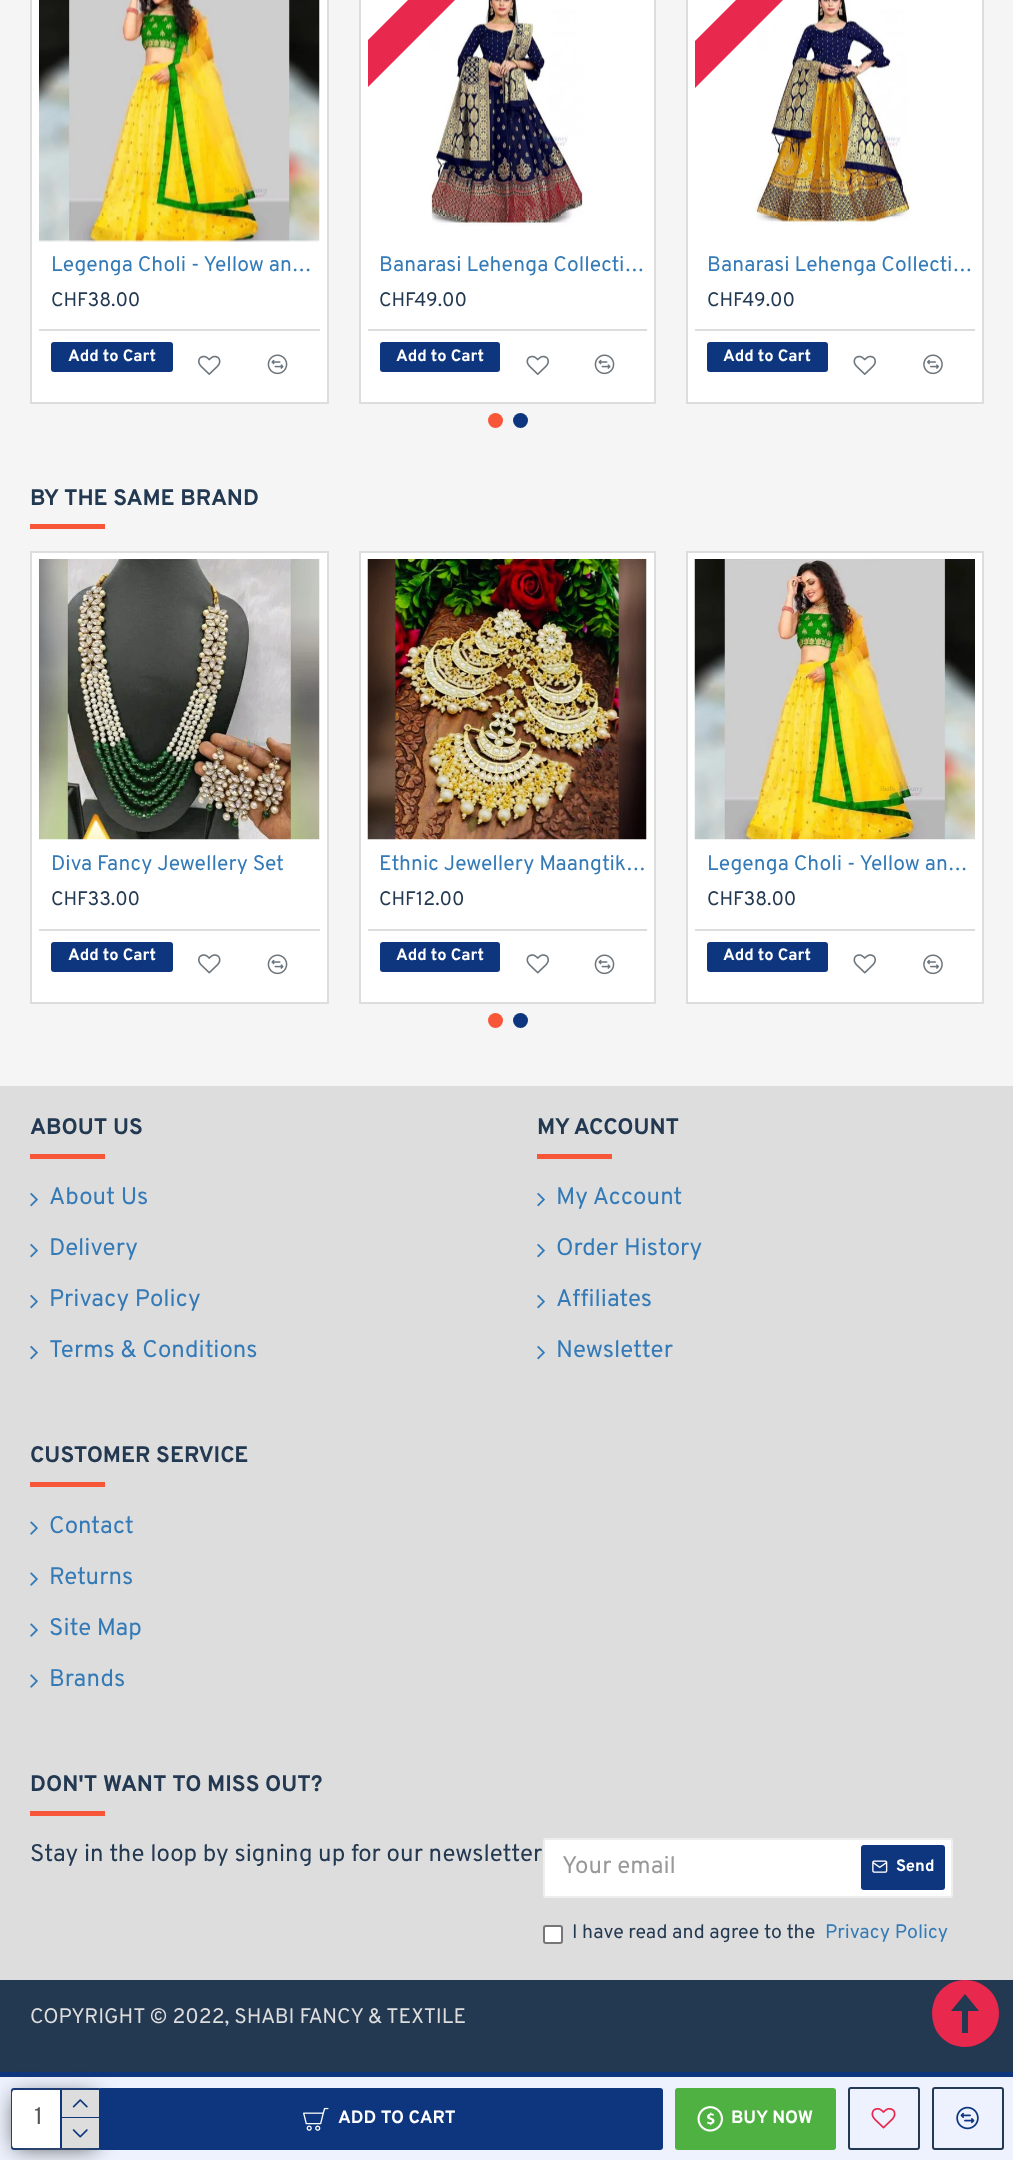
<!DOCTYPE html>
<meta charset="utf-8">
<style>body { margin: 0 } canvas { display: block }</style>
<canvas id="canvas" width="1013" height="2160"></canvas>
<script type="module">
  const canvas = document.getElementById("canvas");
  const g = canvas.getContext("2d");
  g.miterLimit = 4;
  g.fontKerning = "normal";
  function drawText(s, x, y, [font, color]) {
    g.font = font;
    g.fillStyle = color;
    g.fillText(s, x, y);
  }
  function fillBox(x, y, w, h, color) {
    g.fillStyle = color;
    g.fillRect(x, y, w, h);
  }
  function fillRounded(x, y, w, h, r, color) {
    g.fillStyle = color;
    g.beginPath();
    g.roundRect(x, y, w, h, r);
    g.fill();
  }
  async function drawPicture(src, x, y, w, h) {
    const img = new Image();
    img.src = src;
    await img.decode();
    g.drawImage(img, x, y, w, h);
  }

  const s1 = ["21px Overpass", "#337AB7"];
  const s2 = ["19.5px Overpass", "#233851"];
  const s3 = ["bold 16.5px Overpass", "#FFFFFF"];
  const s4 = ["bold 22.5px Overpass", "#233851"];
  const s5 = ["24px Overpass", "#337AB7"];
  const s6 = ["24px Overpass", "#233851"];
  const s7 = ["24px Overpass", "#999999"];
  const s8 = ["19.5px Overpass", "#337AB7"];
  const s9 = ["21px Overpass", "#DDDDDD"];
  const s10 = ["24px Overpass", "#555555"];
  const s11 = ["bold 18px Overpass", "#FFFFFF"];

  fillBox(0, 0, 1013, 2160, "#F5F5F5");
  g.fillStyle = "#FFFFFF";
  g.beginPath();
  g.rect(31, -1, 297, 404);
  g.fill();
  g.strokeStyle = "#DDDDDD";
  g.lineWidth = 2;
  g.stroke();
  await drawPicture("pic1.png", 39, 0, 281, 242);
  drawText("Legenga Choli - Yellow an…", 51, 271, s1);
  drawText("CHF38.00", 51, 306, s2);
  fillBox(39, 329, 281, 2, "#DDDDDD");
  fillRounded(51, 342, 122, 30, 3, "#0D367F");
  drawText("Add to Cart", 68, 361, s3);
  await drawPicture("pic2.png", 198, 355, 23, 20);
  await drawPicture("pic3.png", 267, 354, 21, 21);
  g.beginPath();
  g.rect(360, -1, 295, 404);
  g.fill();
  g.stroke();
  await drawPicture("pic4.png", 430, 0, 153, 226);
  g.save();
  g.beginPath();
  g.rect(368, 0, 279, 242);
  g.clip();
  g.fillStyle = "#E8284D";
  g.beginPath();
  g.moveTo(260, 148);
  g.lineTo(555, -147);
  g.bezierCurveTo(562, -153, 572, -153, 579, -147);
  g.bezierCurveTo(585, -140, 585, -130, 579, -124);
  g.lineTo(284, 171);
  g.bezierCurveTo(277, 178, 267, 178, 260, 171);
  g.bezierCurveTo(254, 165, 254, 154, 260, 148);
  g.closePath();
  g.fill();
  g.restore();
  drawText("Banarasi Lehenga Collecti…", 379, 271, s1);
  drawText("CHF49.00", 379, 306, s2);
  fillBox(368, 329, 279, 2, "#DDDDDD");
  fillRounded(380, 342, 120, 30, 3, "#0D367F");
  drawText("Add to Cart", 396, 361, s3);
  await drawPicture("pic5.png", 526, 355, 23, 20);
  await drawPicture("pic3.png", 594, 354, 21, 21);
  g.beginPath();
  g.rect(687, -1, 296, 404);
  g.fill();
  g.stroke();
  await drawPicture("pic6.png", 753, 0, 157, 225);
  g.save();
  g.beginPath();
  g.rect(695, 0, 280, 242);
  g.clip();
  g.fillStyle = "#E8284D";
  g.beginPath();
  g.moveTo(588, 148);
  g.lineTo(883, -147);
  g.bezierCurveTo(890, -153, 900, -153, 907, -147);
  g.bezierCurveTo(913, -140, 913, -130, 907, -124);
  g.lineTo(612, 171);
  g.bezierCurveTo(605, 178, 595, 178, 588, 171);
  g.bezierCurveTo(582, 165, 582, 154, 588, 148);
  g.closePath();
  g.fill();
  g.restore();
  drawText("Banarasi Lehenga Collecti…", 707, 271, s1);
  drawText("CHF49.00", 707, 306, s2);
  fillBox(695, 329, 280, 2, "#DDDDDD");
  fillRounded(707, 342, 121, 30, 3, "#0D367F");
  drawText("Add to Cart", 723, 361, s3);
  await drawPicture("pic5.png", 853, 355, 23, 20);
  await drawPicture("pic7.png", 923, 354, 20, 21);
  g.fillStyle = "#F85639";
  g.beginPath();
  g.arc(495.5, 420.5, 7.5, 0, Math.PI * 2);
  g.fill();
  g.fillStyle = "#0D367F";
  g.beginPath();
  g.arc(520.5, 420.5, 7.5, 0, Math.PI * 2);
  g.fill();
  drawText("BY THE SAME BRAND", 30, 505, s4);
  fillBox(30, 524, 75, 5, "#F85639");
  g.fillStyle = "#FFFFFF";
  g.beginPath();
  g.rect(31, 552, 297, 451);
  g.fill();
  g.stroke();
  await drawPicture("pic8.png", 39, 559, 281, 281);
  drawText("Diva Fancy Jewellery Set", 51, 870, s1);
  drawText("CHF33.00", 51, 905, s2);
  fillBox(39, 929, 281, 2, "#DDDDDD");
  fillRounded(51, 942, 122, 30, 3, "#0D367F");
  drawText("Add to Cart", 68, 960, s3);
  await drawPicture("pic9.png", 198, 954, 23, 20);
  await drawPicture("pic3.png", 267, 954, 21, 21);
  g.beginPath();
  g.rect(360, 552, 295, 451);
  g.fill();
  g.stroke();
  await drawPicture("pic10.png", 367, 559, 280, 281);
  drawText("Ethnic Jewellery Maangtik…", 379, 870, s1);
  drawText("CHF12.00", 379, 905, s2);
  fillBox(368, 929, 279, 2, "#DDDDDD");
  fillRounded(380, 942, 120, 30, 3, "#0D367F");
  drawText("Add to Cart", 396, 960, s3);
  await drawPicture("pic11.png", 526, 954, 23, 20);
  await drawPicture("pic3.png", 594, 954, 21, 21);
  g.beginPath();
  g.rect(687, 552, 296, 451);
  g.fill();
  g.stroke();
  await drawPicture("pic12.png", 694, 559, 281, 281);
  drawText("Legenga Choli - Yellow an…", 707, 870, s1);
  drawText("CHF38.00", 707, 905, s2);
  fillBox(695, 929, 280, 2, "#DDDDDD");
  fillRounded(707, 942, 121, 30, 3, "#0D367F");
  drawText("Add to Cart", 723, 960, s3);
  await drawPicture("pic11.png", 853, 954, 23, 20);
  await drawPicture("pic7.png", 923, 954, 20, 21);
  g.fillStyle = "#F85639";
  g.beginPath();
  g.arc(495.5, 1020.5, 7.5, 0, Math.PI * 2);
  g.fill();
  g.fillStyle = "#0D367F";
  g.beginPath();
  g.arc(520.5, 1020.5, 7.5, 0, Math.PI * 2);
  g.fill();
  fillBox(0, 1086, 1013, 894, "#DDDDDD");
  drawText("ABOUT US", 30, 1134, s4);
  fillBox(30, 1154, 75, 5, "#F85639");
  await drawPicture("pic13.png", 30, 1192, 8, 15);
  drawText("About Us", 49, 1204, s5);
  await drawPicture("pic13.png", 30, 1243, 8, 15);
  drawText("Delivery", 49, 1255, s5);
  await drawPicture("pic13.png", 30, 1294, 8, 15);
  drawText("Privacy Policy", 49, 1306, s5);
  await drawPicture("pic13.png", 30, 1345, 8, 15);
  drawText("Terms & Conditions", 49, 1357, s5);
  drawText("MY ACCOUNT", 537, 1134, s4);
  fillBox(537, 1154, 75, 5, "#F85639");
  await drawPicture("pic13.png", 537, 1192, 8, 15);
  drawText("My Account", 556, 1204, s5);
  await drawPicture("pic13.png", 537, 1243, 8, 15);
  drawText("Order History", 556, 1255, s5);
  await drawPicture("pic13.png", 537, 1294, 8, 15);
  drawText("Affiliates", 556, 1306, s5);
  await drawPicture("pic13.png", 537, 1345, 8, 15);
  drawText("Newsletter", 556, 1357, s5);
  drawText("CUSTOMER SERVICE", 30, 1462, s4);
  fillBox(30, 1482, 75, 5, "#F85639");
  await drawPicture("pic14.png", 30, 1521, 8, 14);
  drawText("Contact", 49, 1533, s5);
  await drawPicture("pic14.png", 30, 1572, 8, 14);
  drawText("Returns", 49, 1584, s5);
  await drawPicture("pic14.png", 30, 1623, 8, 14);
  drawText("Site Map", 49, 1635, s5);
  await drawPicture("pic14.png", 30, 1674, 8, 14);
  drawText("Brands", 49, 1686, s5);
  drawText("DON'T WANT TO MISS OUT?", 30, 1791, s4);
  fillBox(30, 1811, 75, 5, "#F85639");
  drawText("Stay in the loop by signing up for our newsletter", 30, 1861, s6);
  g.fillStyle = "#FFFFFF";
  g.beginPath();
  g.roundRect(544, 1839, 408, 58, 2);
  g.fill();
  g.strokeStyle = "#EEEEEE";
  g.stroke();
  drawText("Your email", 562, 1873, s7);
  fillRounded(861, 1845, 84, 45, 3, "#0D367F");
  await drawPicture("pic15.png", 872, 1860, 16, 13);
  drawText("Send", 896, 1871, s3);
  g.beginPath();
  g.roundRect(544, 1926, 18, 17, 2);
  g.fill();
  g.strokeStyle = "#767676";
  g.stroke();
  drawText("I have read and agree to the", 572, 1938, s2);
  drawText("Privacy Policy", 825, 1938, s8);
  fillBox(0, 1980, 1013, 92, "#233851");
  drawText("COPYRIGHT © 2022, SHABI FANCY & TEXTILE", 30, 2023, s9);
  fillBox(0, 2077, 1013, 83, "#EDF2FE");
  fillBox(0, 2072, 1013, 5, "#0D367F");
  g.beginPath();
  g.roundRect(12, 2089, 88, 60, 2);
  g.strokeStyle = "#0D367F";
  g.stroke();
  g.fillStyle = "#555555";
  g.filter = "blur(11px)";
  g.beginPath();
  g.rect(15, 2096, 81, 52);
  g.fill();
  g.filter = "none";
  fillRounded(12, 2090, 87, 58, 3, "#FFFFFF");
  drawText("1", 34, 2124, s10);
  fillBox(60, 2090, 2, 58, "#0D367F");
  fillRounded(98, 2088, 565, 62, 3, "#0D367F");
  fillBox(62, 2090, 37, 27, "#DDDDDD");
  fillBox(62, 2117, 37, 1, "#0D367F");
  await drawPicture("pic16.png", 72, 2099, 16, 9);
  fillBox(62, 2118, 37, 30, "#DDDDDD");
  await drawPicture("pic17.png", 72, 2129, 16, 9);
  await drawPicture("pic18.png", 303, 2107, 26, 24);
  drawText("ADD TO CART", 338, 2123, s11);
  fillRounded(675, 2088, 161, 62, 3, "#4EB142");
  await drawPicture("pic19.png", 697, 2106, 26, 26);
  drawText("BUY NOW", 731, 2123, s11);
  g.beginPath();
  g.roundRect(849, 2088, 70, 61, 2);
  g.strokeStyle = "#233851";
  g.stroke();
  await drawPicture("pic20.png", 871, 2107, 25, 22);
  g.beginPath();
  g.roundRect(933, 2088, 70, 61, 2);
  g.stroke();
  await drawPicture("pic21.png", 956, 2106, 23, 24);
  g.fillStyle = "#E8284D";
  g.beginPath();
  g.moveTo(932, 2013);
  g.bezierCurveTo(932, 2020, 934, 2027, 937, 2032);
  g.bezierCurveTo(956, 2060, 999, 2046, 999, 2013);
  g.bezierCurveTo(999, 1981, 956, 1967, 937, 1995);
  g.bezierCurveTo(934, 2000, 932, 2007, 932, 2013);
  g.closePath();
  g.moveTo(979, 2011);
  g.lineTo(968, 2011);
  g.lineTo(968, 2033);
  g.lineTo(962, 2033);
  g.lineTo(962, 2011);
  g.lineTo(951, 2011);
  g.lineTo(965, 1994);
  g.closePath();
  g.fill();
</script>
